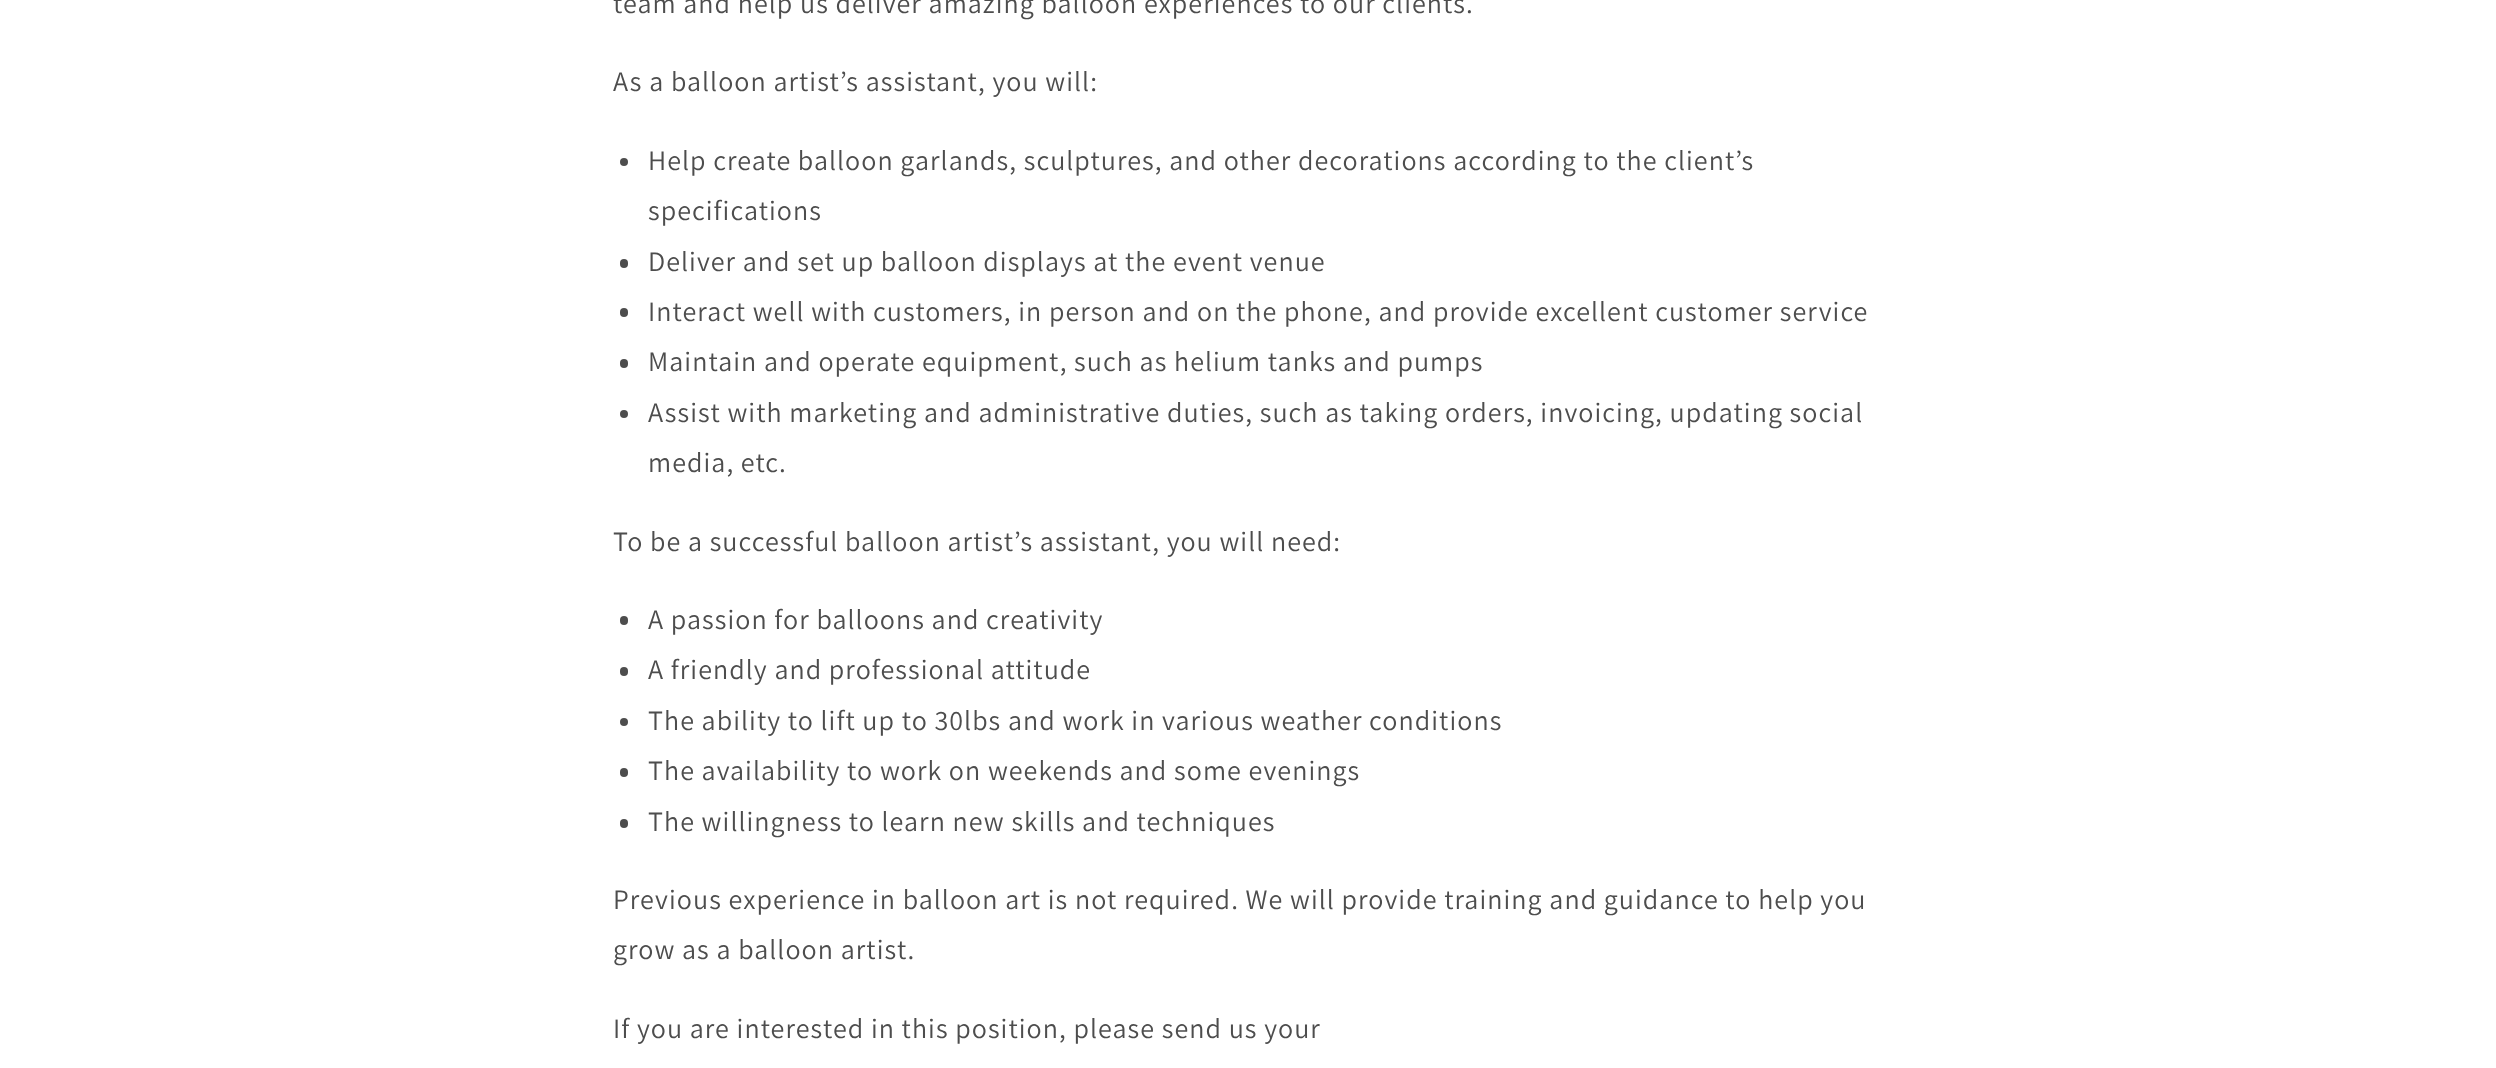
<!DOCTYPE html>
<meta charset="utf-8">
<style>body { margin: 0 } canvas { display: block }</style>
<canvas id="canvas" width="2496" height="1068"></canvas>
<script type="module">
  const canvas = document.getElementById("canvas");
  const g = canvas.getContext("2d");
  g.miterLimit = 4;
  g.fontKerning = "normal";
  function drawText(s, x, y, [font, color]) {
    g.font = font;
    g.fillStyle = color;
    g.fillText(s, x, y);
  }
  function fillBox(x, y, w, h, color) {
    g.fillStyle = color;
    g.fillRect(x, y, w, h);
  }
  function fillRounded(x, y, w, h, r, color) {
    g.fillStyle = color;
    g.beginPath();
    g.roundRect(x, y, w, h, r);
    g.fill();
  }

  const s1 = ["28px Assistant", "#4D4D4D"];

  fillBox(0, 0, 2496, 1068, "#FFFFFF");
  g.letterSpacing = "1.05px";
  drawText("team and help us deliver amazing balloon experiences to our clients.", 613, 13, s1);
  drawText("As a balloon artist’s assistant, you will:", 613, 91, s1);
  g.beginPath();
  g.arc(624, 162, 4, 0, Math.PI * 2);
  g.fill();
  drawText("Help create balloon garlands, sculptures, and other decorations according to the client’s", 648, 170, s1);
  drawText("specifications", 648, 220, s1);
  fillRounded(620, 259, 8, 9, 4, "#4D4D4D");
  drawText("Deliver and set up balloon displays at the event venue", 648, 271, s1);
  fillRounded(620, 308, 8, 9, 4, "#4D4D4D");
  drawText("Interact well with customers, in person and on the phone, and provide excellent customer service", 648, 321, s1);
  fillRounded(620, 359, 8, 9, 4, "#4D4D4D");
  drawText("Maintain and operate equipment, such as helium tanks and pumps", 648, 371, s1);
  g.beginPath();
  g.arc(624, 414, 4, 0, Math.PI * 2);
  g.fill();
  drawText("Assist with marketing and administrative duties, such as taking orders, invoicing, updating social", 648, 422, s1);
  drawText("media, etc.", 648, 472, s1);
  drawText("To be a successful balloon artist’s assistant, you will need:", 613, 551, s1);
  fillRounded(620, 616, 8, 9, 4, "#4D4D4D");
  drawText("A passion for balloons and creativity", 648, 629, s1);
  fillRounded(620, 667, 8, 9, 4, "#4D4D4D");
  drawText("A friendly and professional attitude", 648, 679, s1);
  g.beginPath();
  g.arc(624, 722, 4, 0, Math.PI * 2);
  g.fill();
  drawText("The ability to lift up to 30lbs and work in various weather conditions", 648, 730, s1);
  fillRounded(620, 768, 8, 9, 4, "#4D4D4D");
  drawText("The availability to work on weekends and some evenings", 648, 780, s1);
  fillRounded(620, 819, 8, 9, 4, "#4D4D4D");
  drawText("The willingness to learn new skills and techniques", 648, 831, s1);
  drawText("Previous experience in balloon art is not required. We will provide training and guidance to help you", 613, 909, s1);
  drawText("grow as a balloon artist.", 613, 959, s1);
  drawText("If you are interested in this position, please send us your", 613, 1038, s1);
</script>
